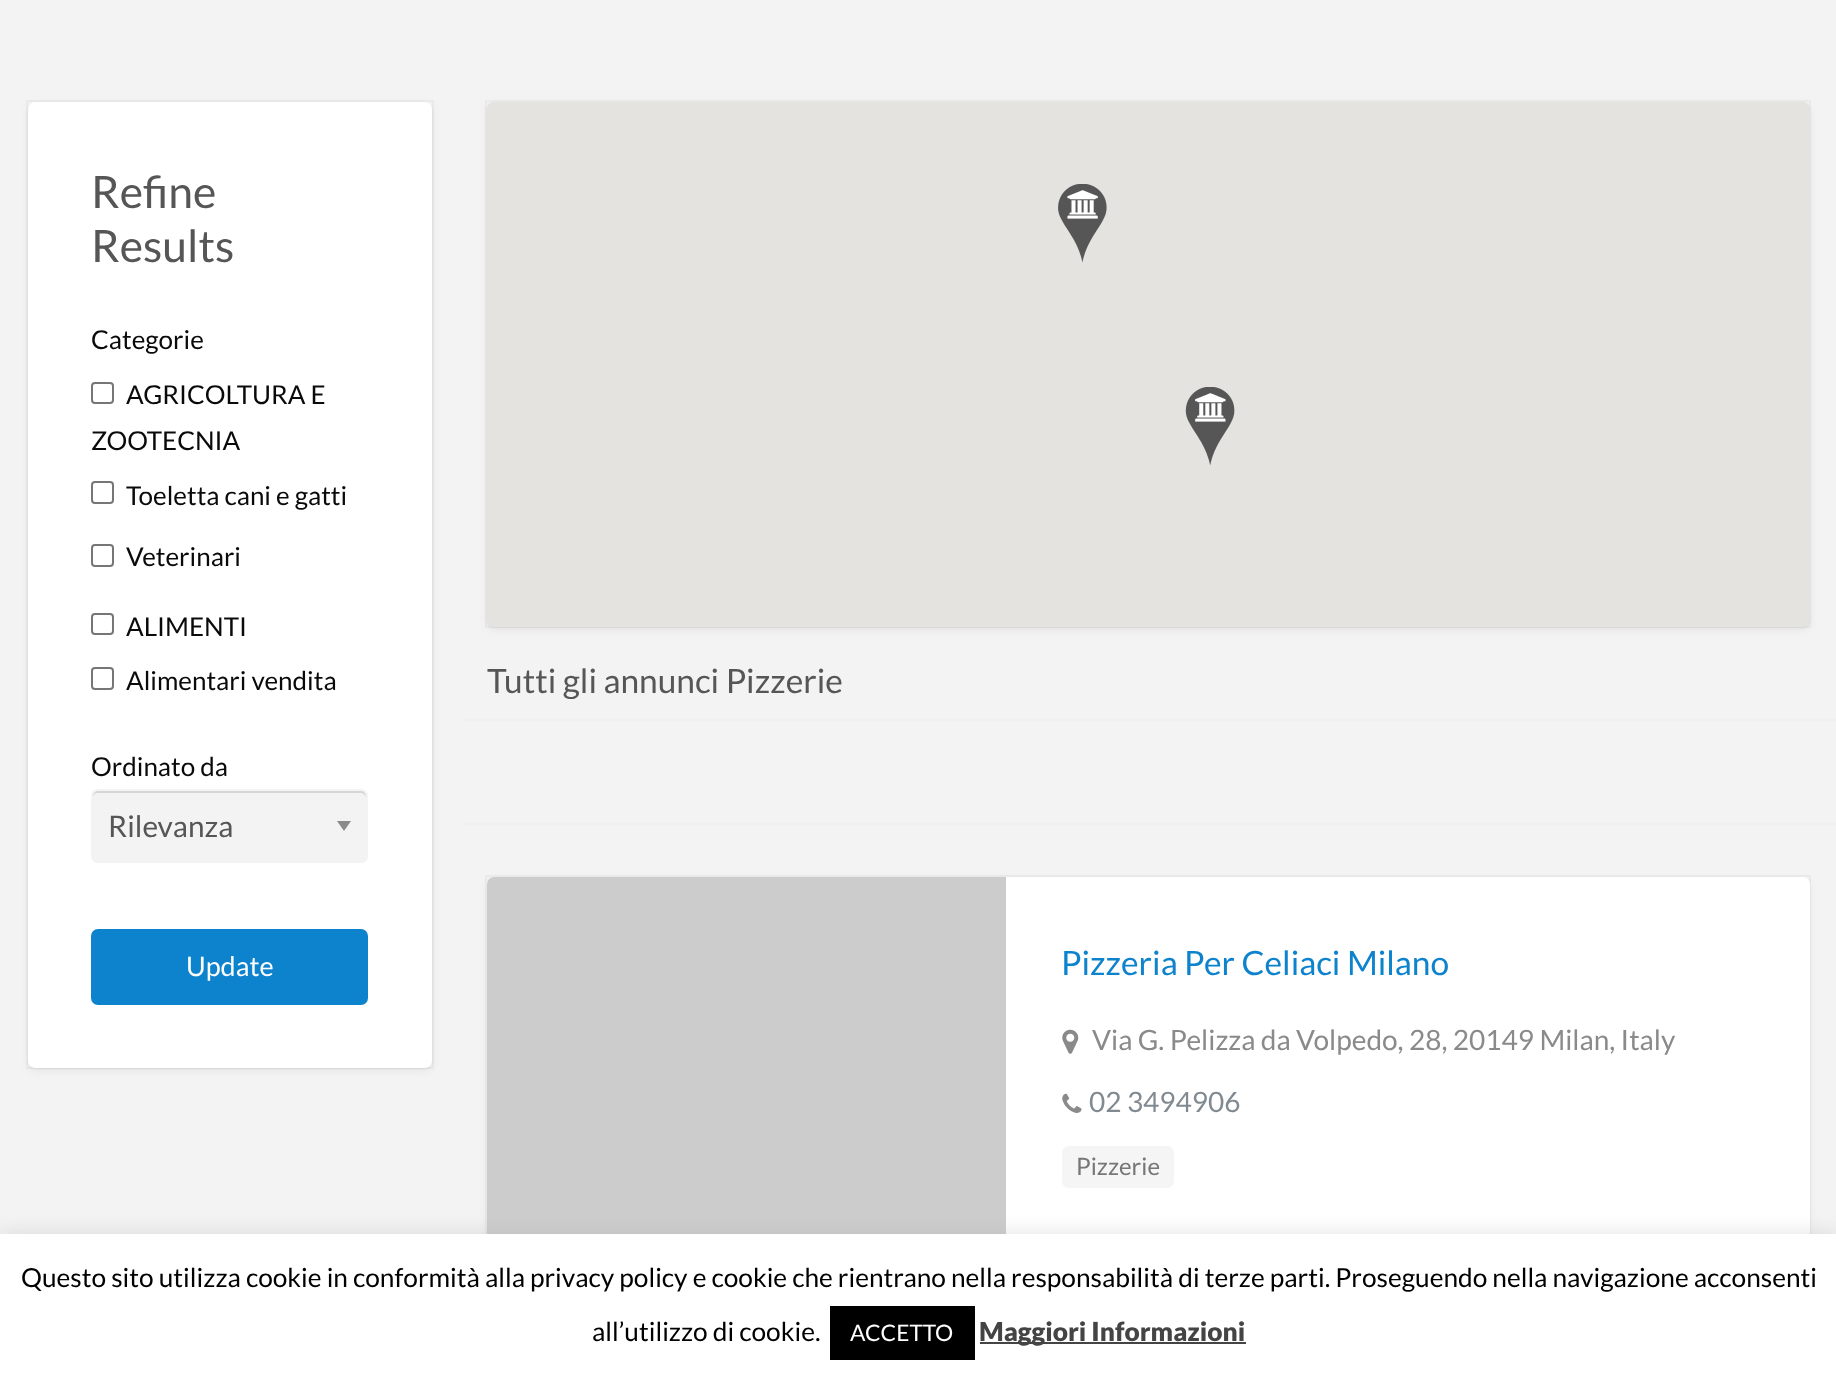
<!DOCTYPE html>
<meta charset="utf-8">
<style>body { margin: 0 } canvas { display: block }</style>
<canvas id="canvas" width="1836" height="1380"></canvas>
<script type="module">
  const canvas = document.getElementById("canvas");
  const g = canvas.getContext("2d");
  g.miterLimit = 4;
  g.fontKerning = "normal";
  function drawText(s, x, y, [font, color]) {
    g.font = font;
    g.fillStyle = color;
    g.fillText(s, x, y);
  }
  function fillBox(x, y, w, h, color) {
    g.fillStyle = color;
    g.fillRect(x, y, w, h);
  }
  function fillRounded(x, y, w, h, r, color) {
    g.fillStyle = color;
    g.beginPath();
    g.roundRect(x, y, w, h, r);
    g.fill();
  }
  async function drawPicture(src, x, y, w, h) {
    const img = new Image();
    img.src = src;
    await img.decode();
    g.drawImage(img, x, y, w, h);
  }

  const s1 = ["44.5px Lato", "#565656"];
  const s2 = ["26px Lato", "#0A0A0A"];
  const s3 = ["29.75px Lato", "#565656"];
  const s4 = ["27px Lato", "#FEFEFE"];
  const s5 = ["33.5px Lato", "#565656"];
  const s6 = ["33.5px Lato", "#0E83CD"];
  const s7 = ["28px Lato", "#8A8A8A"];
  const s8 = ["28px Lato", "#818A91"];
  const s9 = ["24px Lato", "#777777"];
  const s10 = ["26.25px Lato", "#000000"];
  const s11 = ["22.75px Lato", "#FEFEFE"];
  const s12 = ["900 26.25px Lato", "#444444"];

  fillBox(0, 0, 1836, 1380, "#F3F3F4");
  g.fillStyle = "rgba(0, 0, 0, 0.05)";
  g.filter = "blur(4.5px)";
  g.beginPath();
  g.roundRect(28, 105, 404, 966, 7);
  g.fill();
  g.filter = "none";
  g.filter = "blur(1px)";
  g.beginPath();
  g.roundRect(28, 103, 404, 966, 7);
  g.fill();
  g.filter = "none";
  g.strokeStyle = "rgba(0, 0, 0, 0.03)";
  g.lineWidth = 2;
  g.strokeRect(27, 101, 406, 967);
  fillRounded(28, 102, 404, 966, 7, "#FFFFFF");
  drawText("Refine", 91, 208, s1);
  drawText("Results", 91, 262, s1);
  drawText("Categorie", 91, 349, s2);
  g.beginPath();
  g.roundRect(92, 383, 21, 20, 3);
  g.strokeStyle = "#767676";
  g.stroke();
  drawText("AGRICOLTURA E", 126, 404, s2);
  drawText("ZOOTECNIA", 91, 450, s2);
  g.beginPath();
  g.roundRect(92, 482, 21, 21, 3);
  g.stroke();
  drawText("Toeletta cani e gatti", 126, 505, s2);
  g.beginPath();
  g.roundRect(92, 545, 21, 21, 3);
  g.stroke();
  drawText("Veterinari", 126, 566, s2);
  g.beginPath();
  g.roundRect(92, 614, 21, 20, 3);
  g.stroke();
  drawText("ALIMENTI", 126, 636, s2);
  g.beginPath();
  g.roundRect(92, 668, 21, 21, 3);
  g.stroke();
  drawText("Alimentari vendita", 126, 690, s2);
  drawText("Ordinato da", 91, 776, s2);
  fillRounded(91, 789, 277, 74, 7, "#F3F3F4");
  g.fillStyle = "#8A8A8A";
  g.beginPath();
  g.moveTo(337, 821);
  g.lineTo(351, 821);
  g.lineTo(344, 831);
  g.closePath();
  g.fill();
  g.fillStyle = "#D5D5D6";
  g.beginPath();
  g.moveTo(98, 793);
  g.lineTo(360, 793);
  g.bezierCurveTo(363, 793, 366, 795, 366, 798);
  g.lineTo(366, 796);
  g.bezierCurveTo(366, 793, 364, 791, 361, 791);
  g.lineTo(98, 791);
  g.bezierCurveTo(95, 791, 93, 793, 93, 796);
  g.lineTo(93, 798);
  g.bezierCurveTo(93, 795, 95, 793, 98, 793);
  g.closePath();
  g.fill();
  g.beginPath();
  g.roundRect(92, 790, 275, 72, 6);
  g.strokeStyle = "#F3F3F4";
  g.stroke();
  drawText("Rilevanza", 108, 837, s3);
  fillRounded(91, 929, 277, 76, 7, "#0E83CD");
  drawText("Update", 186, 976, s4);
  g.fillStyle = "rgba(0, 0, 0, 0.05)";
  g.filter = "blur(4.5px)";
  g.beginPath();
  g.roundRect(487, 105, 1323, 525, 7);
  g.fill();
  g.filter = "none";
  g.filter = "blur(1px)";
  g.beginPath();
  g.roundRect(487, 103, 1323, 525, 7);
  g.fill();
  g.filter = "none";
  g.strokeStyle = "rgba(0, 0, 0, 0.03)";
  g.strokeRect(486, 101, 1324, 526);
  fillRounded(487, 102, 1323, 525, 7, "#E5E3DF");
  await drawPicture("pic1.png", 1058, 184, 49, 79);
  await drawPicture("pic2.png", 1185, 387, 50, 79);
  drawText("Tutti gli annunci Pizzerie", 487, 693, s5);
  fillBox(460, 719, 1376, 2, "#F0F0F0");
  fillBox(460, 823, 1376, 2, "#F0F0F0");
  g.fillStyle = "rgba(0, 0, 0, 0.05)";
  g.filter = "blur(4.5px)";
  g.beginPath();
  g.roundRect(487, 880, 1323, 368, 7);
  g.fill();
  g.filter = "none";
  g.strokeRect(486, 876, 1324, 369);
  fillRounded(487, 877, 1323, 367, 7, "#FFFFFF");
  g.fillStyle = "#CCCCCC";
  g.beginPath();
  g.roundRect(487, 877, 519, 367, [7, 0, 0, 7]);
  g.fill();
  drawText("Pizzeria Per Celiaci Milano", 1061, 975, s6);
  await drawPicture("pic3.png", 1062, 1029, 17, 25);
  drawText("Via G. Pelizza da Volpedo, 28, 20149 Milan, Italy", 1092, 1050, s7);
  await drawPicture("pic4.png", 1062, 1093, 20, 20);
  drawText("02 3494906", 1089, 1112, s8);
  fillRounded(1062, 1146, 112, 42, 7, "#F5F5F5");
  drawText("Pizzerie", 1076, 1175, s9);
  g.fillStyle = "rgba(172, 171, 171, 0.3)";
  g.filter = "blur(9px)";
  g.beginPath();
  g.rect(0, 1232, 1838, 147);
  g.fill();
  g.filter = "none";
  fillBox(0, 1234, 1836, 146, "#FFFFFF");
  drawText("Questo sito utilizza cookie in conformità alla privacy policy e cookie che rientrano nella responsabilità di terze parti. Proseguendo nella navigazione acconsenti", 21, 1287, s10);
  drawText("all’utilizzo di cookie.", 592, 1341, s10);
  fillBox(830, 1306, 145, 54, "#000000");
  drawText("ACCETTO", 850, 1341, s11);
  fillBox(980, 1342, 266, 2, "#444444");
  drawText("Maggiori Informazioni", 979, 1341, s12);
</script>
